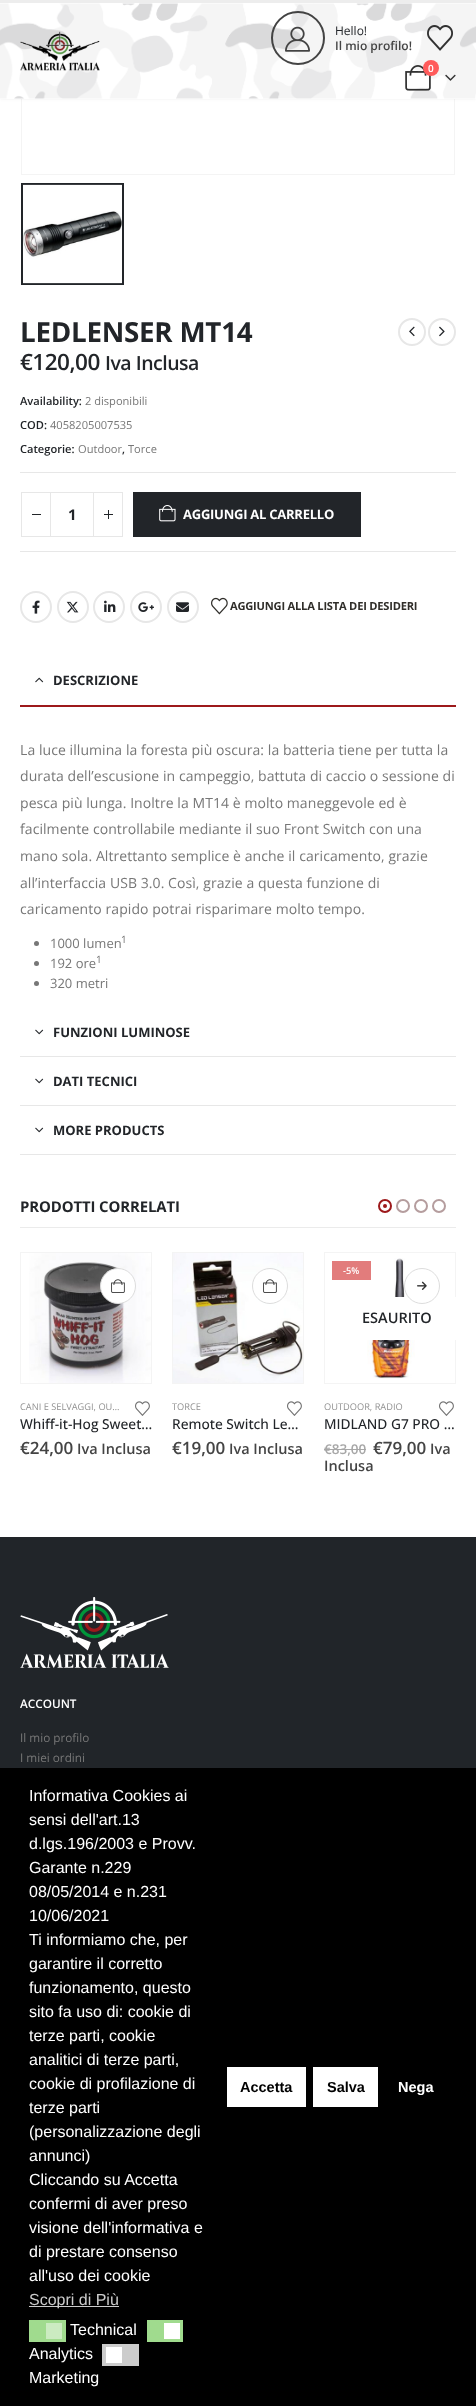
<!DOCTYPE html>
<meta charset="utf-8">
<style>body { margin: 0 } canvas { display: block }</style>
<canvas id="canvas" width="476" height="2406"></canvas>
<script type="module">
  const canvas = document.getElementById("canvas");
  const g = canvas.getContext("2d");
  g.miterLimit = 4;
  g.fontKerning = "normal";
  function drawText(s, x, y, [font, color]) {
    g.font = font;
    g.fillStyle = color;
    g.fillText(s, x, y);
  }
  function fillBox(x, y, w, h, color) {
    g.fillStyle = color;
    g.fillRect(x, y, w, h);
  }
  async function drawPicture(src, x, y, w, h) {
    const img = new Image();
    img.src = src;
    await img.decode();
    g.drawImage(img, x, y, w, h);
  }

  const s1 = ["12px Open Sans", "#222529"];
  const s2 = ["600 12px Open Sans", "#444444"];
  const s3 = ["600 10px Open Sans", "#FFFFFF"];
  const s4 = ["bold 27.75px Open Sans", "#222529"];
  const s5 = ["600 22.5px Open Sans", "#222529"];
  const s6 = ["600 19.5px Open Sans", "#222529"];
  const s7 = ["600 11.1px Open Sans", "#222529"];
  const s8 = ["11.1px Open Sans", "#777777"];
  const s9 = ["bold 14.9px Open Sans", "#222529"];
  const s10 = ["bold 13px Open Sans", "#FFFFFF"];
  const s11 = ["bold 11.1px Open Sans", "#302E2A"];
  const s12 = ["bold 13px Open Sans", "#222529"];
  const s13 = ["14px Open Sans", "#777777"];
  const s14 = ["13px Open Sans", "#777777"];
  const s15 = ["10px Open Sans", "#777777"];
  const s16 = ["9.25px Open Sans", "#929292"];
  const s17 = ["500 13.75px Open Sans", "#222529"];
  const s18 = ["600 17px Open Sans", "#444444"];
  const s19 = ["600 14.5px Open Sans", "#444444"];
  const s20 = ["600 9.25px Open Sans", "#FFFFFF"];
  const s21 = ["600 14.5px Open Sans", "#222529"];
  const s22 = ["600 13.5px Open Sans", "#A7A7A7"];
  const s23 = ["600 11.75px Open Sans", "#FFFFFF"];
  const s24 = ["11.75px Open Sans", "#777777"];
  const s25 = ["16px Liberation Sans", "#FFFFFF"];
  const s26 = ["16px Liberation Sans", "#CCCCCC"];
  const s27 = ["bold 14.5px Liberation Sans", "#000000"];
  const s28 = ["bold 14.5px Liberation Sans", "#FFFFFF"];

  fillBox(0, 0, 476, 2406, "#FFFFFF");
  g.strokeStyle = "#F4F4F4";
  g.strokeRect(21.5, -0.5, 433, 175);
  g.fillStyle = "rgba(0, 0, 0, 0.06)";
  g.filter = "blur(1.5px)";
  g.beginPath();
  g.rect(0, 0, 476, 99);
  g.fill();
  g.filter = "none";
  await drawPicture("pic1.png", 0, 3, 476, 96);
  fillBox(0, 0, 476, 3, "#EDEDED");
  await drawPicture("pic2.png", 20, 31, 80, 40);
  g.beginPath();
  g.arc(298, 38, 26, 0, Math.PI * 2);
  g.strokeStyle = "#434343";
  g.lineWidth = 2;
  g.stroke();
  await drawPicture("pic3.png", 285, 26, 25, 26);
  drawText("Hello!", 335, 35, s1);
  drawText("Il mio profilo!", 335, 50, s2);
  await drawPicture("pic4.png", 427, 25, 26, 26);
  await drawPicture("pic5.png", 405, 65, 26, 26);
  g.fillStyle = "#FF5B5B";
  g.beginPath();
  g.arc(431, 68, 8, 0, Math.PI * 2);
  g.fill();
  drawText("0", 428, 72, s3);
  await drawPicture("pic6.png", 445, 74, 11, 7);
  g.strokeStyle = "#222529";
  g.strokeRect(22, 184, 101, 100);
  await drawPicture("pic7.png", 23, 184, 99, 100);
  g.letterSpacing = "-0.25px";
  drawText("LEDLENSER MT14", 20, 342, s4);
  g.beginPath();
  g.arc(412, 332, 13, 0, Math.PI * 2);
  g.strokeStyle = "#E7E7E7";
  g.stroke();
  await drawPicture("pic8.png", 409, 326, 6, 11);
  g.beginPath();
  g.arc(442, 332, 13, 0, Math.PI * 2);
  g.stroke();
  await drawPicture("pic9.png", 439, 326, 6, 11);
  g.letterSpacing = "-0.5px";
  drawText("€120,00", 20, 370, s5);
  drawText("Iva Inclusa", 105, 370, s6);
  g.letterSpacing = "0px";
  drawText("Availability:", 20, 405, s7);
  drawText("2 disponibili", 85, 405, s8);
  drawText("COD:", 20, 429, s7);
  drawText("4058205007535", 50, 429, s8);
  drawText("Categorie:", 20, 453, s7);
  drawText("Outdoor", 78, 453, s8);
  drawText(",", 122, 453, s7);
  drawText("Torce", 128, 453, s8);
  fillBox(20, 472, 436, 1, "#E7E7E7");
  fillBox(20, 551, 436, 1, "#E7E7E7");
  fillBox(50, 492, 44, 1, "#E7E7E7");
  fillBox(50, 536, 44, 1, "#E7E7E7");
  g.lineWidth = 1;
  g.strokeRect(21.5, 492.5, 29, 44);
  fillBox(32, 514, 9, 1, "#222529");
  drawText("1", 68, 520, s9);
  g.strokeRect(93.5, 492.5, 29, 44);
  fillBox(104, 514, 9, 1, "#222529");
  fillBox(108, 510, 1, 9, "#222529");
  fillBox(133, 492, 228, 45, "#222529");
  await drawPicture("pic10.png", 159, 505, 17, 17);
  g.letterSpacing = "-0.25px";
  drawText("AGGIUNGI AL CARRELLO", 183, 519, s10);
  g.beginPath();
  g.arc(36, 607, 15, 0, Math.PI * 2);
  g.lineWidth = 2;
  g.stroke();
  await drawPicture("pic11.png", 32, 600, 8, 14);
  g.beginPath();
  g.arc(73, 607, 15, 0, Math.PI * 2);
  g.stroke();
  await drawPicture("pic12.png", 66, 601, 13, 12);
  g.beginPath();
  g.arc(109, 607, 15, 0, Math.PI * 2);
  g.stroke();
  await drawPicture("pic13.png", 104, 600, 12, 12);
  g.beginPath();
  g.arc(146, 607, 15, 0, Math.PI * 2);
  g.stroke();
  await drawPicture("pic14.png", 138, 602, 16, 10);
  g.beginPath();
  g.arc(183, 607, 15, 0, Math.PI * 2);
  g.stroke();
  await drawPicture("pic15.png", 176, 602, 13, 10);
  await drawPicture("pic16.png", 211, 597, 17, 18);
  g.letterSpacing = "-0.2px";
  drawText("AGGIUNGI ALLA LISTA DEI DESIDERI", 230, 610, s11);
  fillBox(20, 705, 436, 2, "#9D191B");
  await drawPicture("pic17.png", 35, 677, 9, 6);
  g.letterSpacing = "0px";
  drawText("DESCRIZIONE", 53, 685, s12);
  g.letterSpacing = "0.07px";
  drawText("La luce illumina la foresta più oscura: la batteria tiene per tutta la", 20, 755, s13);
  drawText("durata dell’escusione in campeggio, battuta di caccio o sessione di", 20, 781, s13);
  drawText("pesca più lunga. Inoltre la MT14 è molto maneggevole ed è", 20, 808, s13);
  drawText("facilmente controllabile mediante il suo Front Switch con una", 20, 834, s13);
  drawText("mano sola. Altrettanto semplice è anche il caricamento, grazie", 20, 861, s13);
  drawText("all’interfaccia USB 3.0. Così, grazie a questa funzione di", 20, 888, s13);
  drawText("caricamento rapido potrai risparimare molto tempo.", 20, 914, s13);
  g.beginPath();
  g.arc(36.5, 943.5, 2.5, 0, Math.PI * 2);
  g.fill();
  g.letterSpacing = "0px";
  drawText("1000 lumen", 50, 948, s14);
  drawText("1", 121, 943, s15);
  g.beginPath();
  g.arc(36.5, 963.5, 2.5, 0, Math.PI * 2);
  g.fill();
  drawText("192 ore", 50, 968, s14);
  drawText("1", 96, 963, s15);
  g.beginPath();
  g.arc(36.5, 983.5, 2.5, 0, Math.PI * 2);
  g.fill();
  drawText("320 metri", 50, 988, s14);
  fillBox(20, 1056, 436, 1, "#E7E7E7");
  await drawPicture("pic18.png", 35, 1029, 9, 6);
  drawText("FUNZIONI LUMINOSE", 53, 1037, s12);
  fillBox(20, 1105, 436, 1, "#E7E7E7");
  await drawPicture("pic18.png", 35, 1078, 9, 6);
  drawText("DATI TECNICI", 53, 1086, s12);
  fillBox(20, 1154, 436, 1, "#E7E7E7");
  await drawPicture("pic18.png", 35, 1127, 9, 6);
  drawText("MORE PRODUCTS", 53, 1135, s12);
  fillBox(20, 1227, 436, 1, "#EBEBEB");
  g.letterSpacing = "-0.1px";
  drawText("PRODOTTI CORRELATI", 20, 1212, s9);
  g.beginPath();
  g.arc(385, 1206, 6, 0, Math.PI * 2);
  g.strokeStyle = "#9D191B";
  g.stroke();
  g.fillStyle = "#9D191B";
  g.beginPath();
  g.arc(385, 1206, 2, 0, Math.PI * 2);
  g.fill();
  g.beginPath();
  g.arc(403, 1206, 6, 0, Math.PI * 2);
  g.strokeStyle = "#B59D9E";
  g.stroke();
  g.beginPath();
  g.arc(421, 1206, 6, 0, Math.PI * 2);
  g.stroke();
  g.beginPath();
  g.arc(439, 1206, 6, 0, Math.PI * 2);
  g.stroke();
  g.strokeStyle = "#F4F4F4";
  g.lineWidth = 1;
  g.strokeRect(20.5, 1252.5, 131, 131);
  await drawPicture("pic19.png", 29, 1253, 122, 130);
  g.fillStyle = "#FFFFFF";
  g.beginPath();
  g.arc(118, 1286, 17.5, 0, Math.PI * 2);
  g.fill();
  g.strokeStyle = "#DDDDDD";
  g.stroke();
  await drawPicture("pic20.png", 111, 1279, 14, 14);
  g.letterSpacing = "0px";
  drawText("CANI E SELVAGGI, OU…", 20, 1410, s16);
  await drawPicture("pic21.png", 135, 1401, 15, 15);
  drawText("Whiff-it-Hog Sweet…", 20, 1429, s17);
  drawText("€24,00", 20, 1454, s18);
  drawText("Iva Inclusa", 77, 1454, s19);
  g.strokeStyle = "#F4F4F4";
  g.strokeRect(172.5, 1252.5, 131, 131);
  await drawPicture("pic22.png", 173, 1253, 130, 130);
  g.fillStyle = "#FFFFFF";
  g.beginPath();
  g.arc(270, 1286, 17.5, 0, Math.PI * 2);
  g.fill();
  g.strokeStyle = "#DDDDDD";
  g.stroke();
  await drawPicture("pic20.png", 263, 1279, 14, 14);
  drawText("TORCE", 172, 1410, s16);
  await drawPicture("pic21.png", 287, 1401, 15, 15);
  drawText("Remote Switch Le…", 172, 1429, s17);
  drawText("€19,00", 172, 1454, s18);
  drawText("Iva Inclusa", 229, 1454, s19);
  g.strokeStyle = "#F4F4F4";
  g.strokeRect(324.5, 1252.5, 131, 131);
  await drawPicture("pic23.png", 367, 1258, 48, 121);
  fillBox(332, 1261, 39, 19, "#E27C7C");
  drawText("-5%", 343, 1274, s20);
  fillBox(367, 1297, 89, 43, "#FFFFFF");
  drawText("ESAURITO", 362, 1323, s21);
  g.fillStyle = "#FFFFFF";
  g.beginPath();
  g.arc(422, 1286, 17.5, 0, Math.PI * 2);
  g.fill();
  g.strokeStyle = "#DDDDDD";
  g.stroke();
  await drawPicture("pic24.png", 417, 1281, 10, 9);
  drawText("OUTDOOR, RADIO", 324, 1410, s16);
  await drawPicture("pic21.png", 439, 1401, 15, 15);
  drawText("MIDLAND G7 PRO …", 324, 1429, s17);
  drawText("€83,00", 324, 1454, s22);
  fillBox(324, 1449, 42, 1, "#A7A7A7");
  drawText("€79,00", 373, 1454, s18);
  drawText("Iva", 430, 1454, s19);
  drawText("Inclusa", 324, 1471, s19);
  fillBox(0, 1537, 476, 231, "#212529");
  await drawPicture("pic25.png", 20, 1597, 149, 71);
  drawText("ACCOUNT", 20, 1708, s23);
  drawText("Il mio profilo", 20, 1742, s24);
  drawText("I miei ordini", 20, 1762, s24);
  fillBox(0, 1768, 476, 638, "#000000");
  drawText("Informativa Cookies ai", 29, 1801, s25);
  drawText("sensi dell'art.13", 29, 1825, s25);
  drawText("d.lgs.196/2003 e Provv.", 29, 1849, s25);
  drawText("Garante n.229", 29, 1873, s25);
  drawText("08/05/2014 e n.231", 29, 1897, s25);
  drawText("10/06/2021", 29, 1921, s25);
  drawText("Ti informiamo che, per", 29, 1945, s25);
  drawText("garantire il corretto", 29, 1969, s25);
  drawText("funzionamento, questo", 29, 1993, s25);
  drawText("sito fa uso di: cookie di", 29, 2017, s25);
  drawText("terze parti, cookie", 29, 2041, s25);
  drawText("analitici di terze parti,", 29, 2065, s25);
  drawText("cookie di profilazione di", 29, 2089, s25);
  drawText("terze parti", 29, 2113, s25);
  drawText("(personalizzazione degli", 29, 2137, s25);
  drawText("annunci)", 29, 2161, s25);
  drawText("Cliccando su Accetta", 29, 2185, s25);
  drawText("confermi di aver preso", 29, 2209, s25);
  drawText("visione dell'informativa e", 29, 2233, s25);
  drawText("di prestare consenso", 29, 2257, s25);
  drawText("all'uso dei cookie", 29, 2281, s25);
  fillBox(29, 2306, 90, 1, "#CCCCCC");
  drawText("Scopri di Più", 29, 2305, s26);
  fillBox(29, 2320, 37, 22, "#A0DB8E");
  fillBox(46, 2323, 16, 16, "#CBEBC1");
  drawText("Technical", 70, 2335, s25);
  fillBox(147, 2320, 36, 22, "#A0DB8E");
  fillBox(164, 2323, 16, 16, "#FFFFFF");
  drawText("Analytics", 29, 2359, s25);
  fillBox(102, 2344, 37, 22, "#CCCCCC");
  fillBox(106, 2347, 16, 16, "#FFFFFF");
  drawText("Marketing", 29, 2383, s25);
  fillBox(227, 2067, 79, 40, "#FFFFFF");
  drawText("Accetta", 240, 2092, s27);
  fillBox(313, 2067, 65, 40, "#FFFFFF");
  drawText("Salva", 327, 2092, s27);
  drawText("Nega", 398, 2092, s28);
</script>
